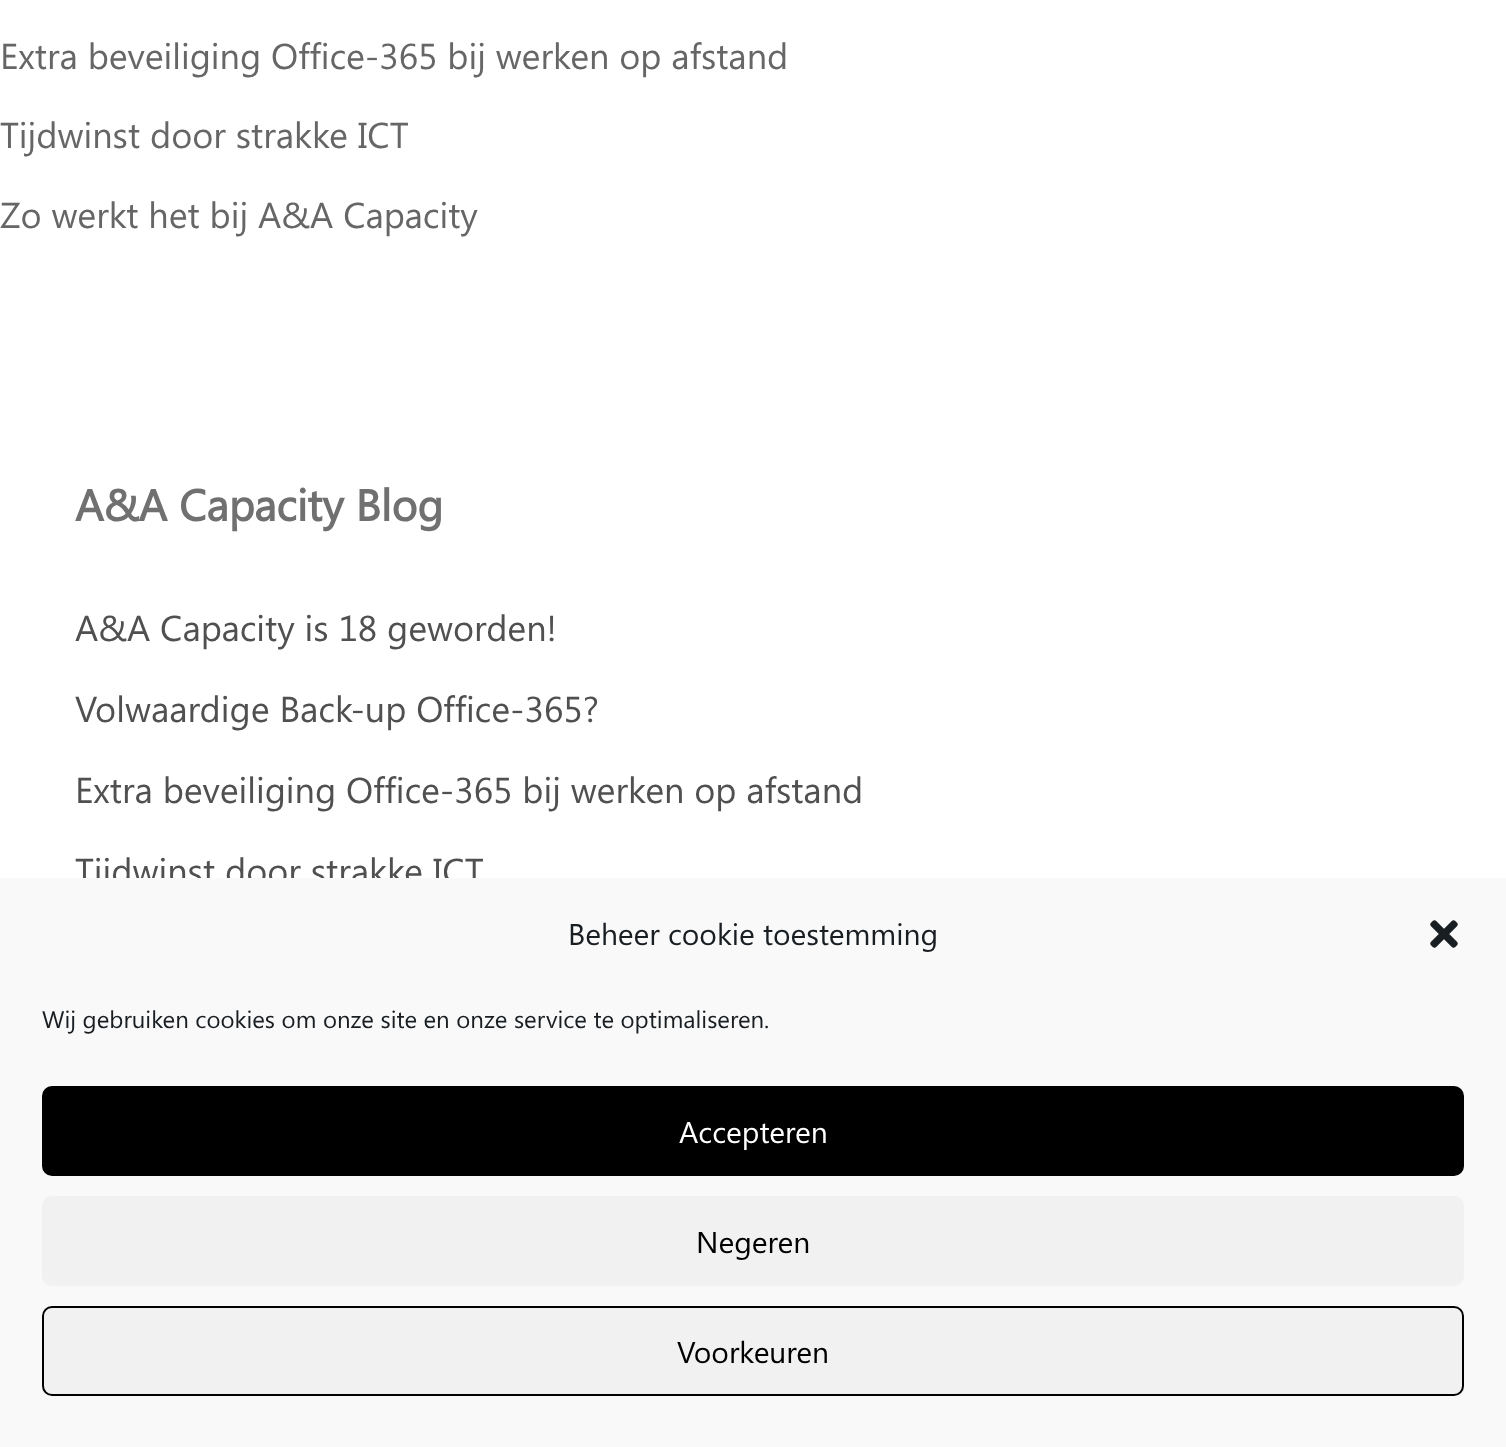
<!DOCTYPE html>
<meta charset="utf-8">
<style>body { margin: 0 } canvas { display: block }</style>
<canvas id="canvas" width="1506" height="1447"></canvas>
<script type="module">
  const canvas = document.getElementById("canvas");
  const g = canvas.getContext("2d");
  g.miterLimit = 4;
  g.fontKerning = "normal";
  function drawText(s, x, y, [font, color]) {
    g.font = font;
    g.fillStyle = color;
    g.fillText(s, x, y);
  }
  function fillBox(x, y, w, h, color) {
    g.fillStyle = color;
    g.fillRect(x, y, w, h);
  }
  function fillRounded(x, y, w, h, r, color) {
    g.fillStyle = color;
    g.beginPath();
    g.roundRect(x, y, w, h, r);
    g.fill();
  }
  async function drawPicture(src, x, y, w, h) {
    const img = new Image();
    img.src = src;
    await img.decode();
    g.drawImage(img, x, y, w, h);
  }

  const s1 = ["36px Segoe UI", "#666666"];
  const s2 = ["bold 44px Segoe UI", "#707070"];
  const s3 = ["36px Segoe UI", "#505050"];
  const s4 = ["30px Segoe UI", "#191E23"];
  const s5 = ["24px Segoe UI", "#191E23"];
  const s6 = ["30px Segoe UI", "#FFFFFF"];
  const s7 = ["30px Segoe UI", "#000000"];

  fillBox(0, 0, 1506, 1447, "#FFFFFF");
  drawText("Extra beveiliging Office-365 bij werken op afstand", 0, 69, s1);
  drawText("Tijdwinst door strakke ICT", 0, 148, s1);
  drawText("Zo werkt het bij A&A Capacity", 0, 228, s1);
  drawText("A&A Capacity Blog", 75, 521, s2);
  drawText("A&A Capacity is 18 geworden!", 75, 641, s3);
  drawText("Volwaardige Back-up Office-365?", 75, 722, s3);
  drawText("Extra beveiliging Office-365 bij werken op afstand", 75, 803, s3);
  drawText("Tijdwinst door strakke ICT", 75, 884, s3);
  fillBox(0, 878, 1506, 569, "#F9F9F9");
  drawText("Beheer cookie toestemming", 568, 945, s4);
  await drawPicture("pic1.png", 1430, 920, 28, 28);
  drawText("Wij gebruiken cookies om onze site en onze service te optimaliseren.", 42, 1028, s5);
  g.fillStyle = "#000000";
  g.beginPath();
  g.roundRect(43, 1087, 1420, 88, 9);
  g.fill();
  g.strokeStyle = "#000000";
  g.lineWidth = 2;
  g.stroke();
  drawText("Accepteren", 679, 1143, s6);
  fillRounded(42, 1196, 1422, 90, 10, "#F1F1F1");
  drawText("Negeren", 696, 1253, s7);
  g.fillStyle = "#F1F1F1";
  g.beginPath();
  g.roundRect(43, 1307, 1420, 88, 9);
  g.fill();
  g.stroke();
  drawText("Voorkeuren", 677, 1363, s7);
</script>
